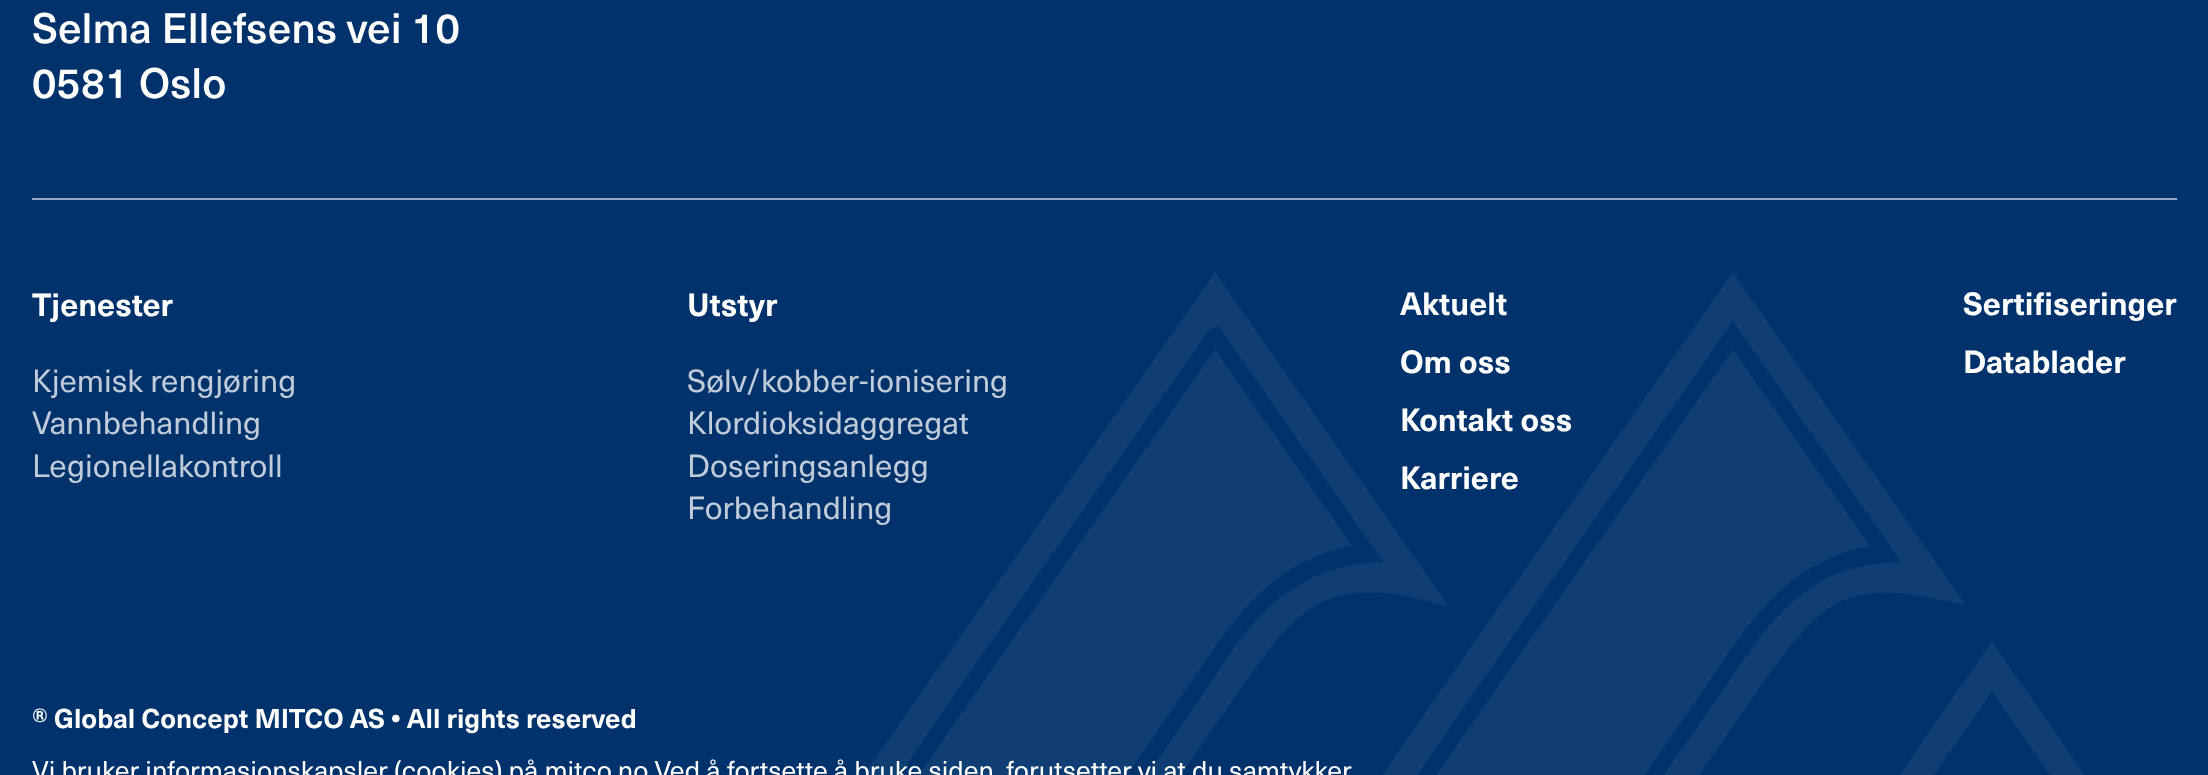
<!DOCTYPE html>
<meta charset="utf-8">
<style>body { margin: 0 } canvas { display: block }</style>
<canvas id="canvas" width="2208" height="775"></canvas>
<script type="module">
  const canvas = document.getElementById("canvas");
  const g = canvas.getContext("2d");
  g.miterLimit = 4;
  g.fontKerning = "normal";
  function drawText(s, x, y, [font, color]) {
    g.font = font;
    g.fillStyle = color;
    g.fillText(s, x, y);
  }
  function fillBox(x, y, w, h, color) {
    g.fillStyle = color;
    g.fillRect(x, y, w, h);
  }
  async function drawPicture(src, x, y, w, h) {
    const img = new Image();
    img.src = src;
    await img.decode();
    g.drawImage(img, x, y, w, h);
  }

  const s1 = ["500 41.9px 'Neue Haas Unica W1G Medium'", "#FFFFFF"];
  const s2 = ["bold 31.5px 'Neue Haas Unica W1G'", "#FFFFFF"];
  const s3 = ["31.5px 'Neue Haas Unica W1G'", "#C0CCDA"];
  const s4 = ["bold 26.8px 'Neue Haas Unica W1G'", "#FFFFFF"];
  const s5 = ["26.8px 'Neue Haas Unica W1G'", "#FFFFFF"];

  fillBox(0, 0, 2208, 775, "#01326C");
  await drawPicture("pic1.png", 864, 272, 1220, 503);
  drawText("Selma Ellefsens vei 10", 32, 43, s1);
  drawText("0581 Oslo", 32, 98, s1);
  fillBox(32, 198, 2145, 2, "#94A9C1");
  drawText("Tjenester", 32, 316, s2);
  drawText("Kjemisk rengjøring", 32, 392, s3);
  drawText("Vannbehandling", 32, 434, s3);
  drawText("Legionellakontroll", 32, 477, s3);
  drawText("Utstyr", 687, 316, s2);
  drawText("Sølv/kobber-ionisering", 687, 392, s3);
  drawText("Klordioksidaggregat", 687, 434, s3);
  drawText("Doseringsanlegg", 687, 477, s3);
  drawText("Forbehandling", 687, 519, s3);
  drawText("Aktuelt", 1400, 315, s2);
  drawText("Om oss", 1400, 373, s2);
  drawText("Kontakt oss", 1400, 431, s2);
  drawText("Karriere", 1400, 489, s2);
  drawText("Sertifiseringer", 1963, 315, s2);
  drawText("Datablader", 1963, 373, s2);
  drawText("® Global Concept MITCO AS • All rights reserved", 32, 728, s4);
  drawText("Vi bruker informasjonskapsler (cookies) på mitco.no Ved å fortsette å bruke siden, forutsetter vi at du samtykker.", 32, 780, s5);
</script>
